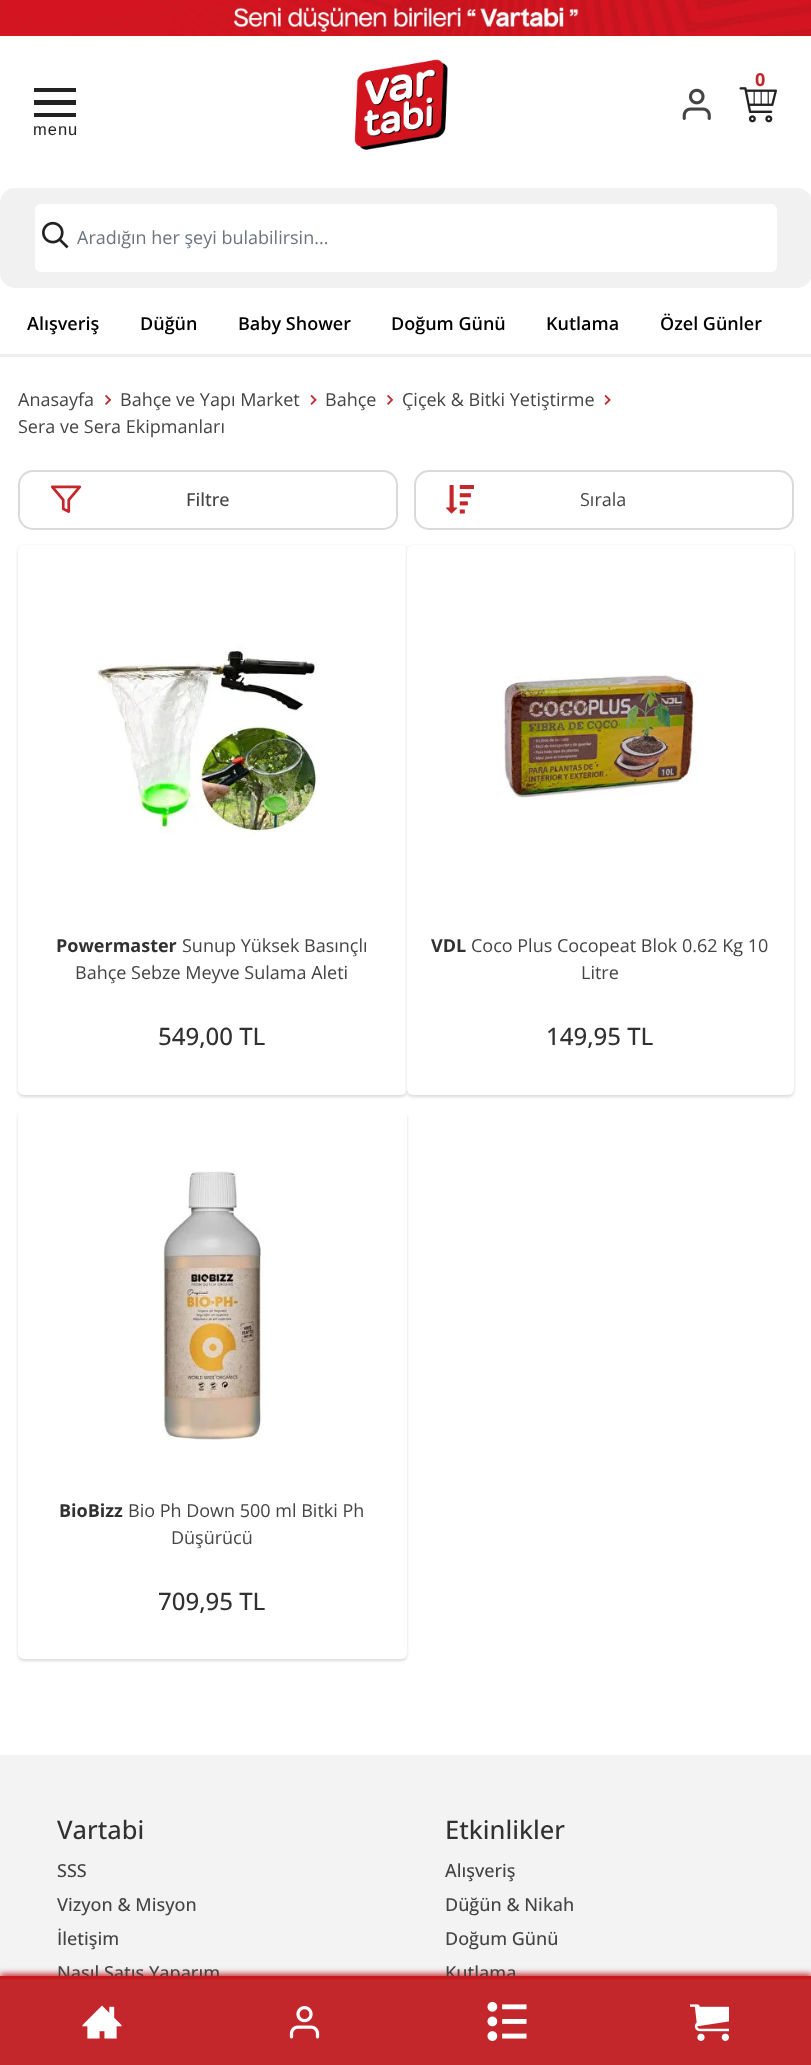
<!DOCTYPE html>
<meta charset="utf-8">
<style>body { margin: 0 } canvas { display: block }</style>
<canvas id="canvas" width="811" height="2065"></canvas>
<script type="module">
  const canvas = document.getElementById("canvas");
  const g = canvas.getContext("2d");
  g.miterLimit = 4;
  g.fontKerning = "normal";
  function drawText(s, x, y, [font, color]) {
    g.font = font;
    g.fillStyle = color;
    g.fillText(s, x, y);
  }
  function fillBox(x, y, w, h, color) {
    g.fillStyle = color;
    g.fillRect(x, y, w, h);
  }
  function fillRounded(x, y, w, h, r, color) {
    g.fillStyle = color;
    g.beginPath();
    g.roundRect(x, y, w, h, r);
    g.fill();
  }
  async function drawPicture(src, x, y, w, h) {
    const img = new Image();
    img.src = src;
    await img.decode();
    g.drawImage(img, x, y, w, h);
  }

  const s1 = ["bold 18px Open Sans", "#C3272C"];
  const s2 = ["16.5px Liberation Sans", "#222222"];
  const s3 = ["18px Open Sans", "#6C757D"];
  const s4 = ["600 18px Open Sans", "#000000"];
  const s5 = ["500 18px Open Sans", "#444444"];
  const s6 = ["18px Open Sans", "#444444"];
  const s7 = ["bold 18px Open Sans", "#313131"];
  const s8 = ["500 24px Open Sans", "#313131"];
  const s9 = ["500 25.5px Open Sans", "#313131"];

  fillBox(0, 0, 811, 2065, "#FFFFFF");
  fillBox(0, 354, 811, 3, "#EEEEEE");
  await drawPicture("pic1.png", 0, 0, 811, 36);
  await drawPicture("pic2.png", 354, 59, 94, 91);
  drawText("0", 755, 86, s1);
  await drawPicture("pic3.png", 739, 87, 38, 36);
  await drawPicture("pic4.png", 682, 88, 29, 32);
  g.fillStyle = "#222222";
  g.beginPath();
  g.moveTo(34, 88);
  g.lineTo(76, 88);
  g.lineTo(76, 92);
  g.lineTo(34, 92);
  g.closePath();
  g.moveTo(34, 100);
  g.lineTo(76, 100);
  g.lineTo(76, 105);
  g.lineTo(34, 105);
  g.closePath();
  g.moveTo(34, 113);
  g.lineTo(76, 113);
  g.lineTo(76, 117);
  g.lineTo(34, 117);
  g.closePath();
  g.fill();
  g.letterSpacing = "1px";
  drawText("menu", 33, 135, s2);
  fillRounded(0, 188, 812, 100, 15, "#F1F1F1");
  fillRounded(35, 204, 742, 68, 6, "#FFFFFF");
  await drawPicture("pic5.png", 42, 221, 27, 28);
  g.letterSpacing = "0px";
  drawText("Aradığın her şeyi bulabilirsin...", 77, 244, s3);
  drawText("Alışveriş", 27, 330, s4);
  drawText("Düğün", 140, 330, s4);
  drawText("Baby Shower", 238, 330, s4);
  drawText("Doğum Günü", 391, 330, s4);
  drawText("Kutlama", 546, 330, s4);
  drawText("Özel Günler", 660, 330, s4);
  fillBox(0, 1755, 811, 221, "#F3F3F3");
  g.fillStyle = "#C3272C";
  g.filter = "blur(3px)";
  g.beginPath();
  g.rect(0, 1974, 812, 90);
  g.fill();
  g.filter = "none";
  drawText("Nasıl Satış Yaparım", 57, 1979, s5);
  drawText("Kutlama", 445, 1979, s5);
  fillBox(0, 1979, 811, 86, "#C3272C");
  fillBox(0, 1976, 811, 3, "#C9171E");
  await drawPicture("pic6.png", 82, 2005, 40, 34);
  await drawPicture("pic7.png", 289, 2006, 31, 33);
  await drawPicture("pic8.png", 487, 2001, 40, 40);
  await drawPicture("pic9.png", 690, 2004, 39, 37);
  drawText("Anasayfa", 18, 406, s6);
  await drawPicture("pic10.png", 105, 394, 7, 11);
  drawText("Bahçe ve Yapı Market", 120, 406, s6);
  await drawPicture("pic11.png", 310, 394, 7, 11);
  drawText("Bahçe", 325, 406, s6);
  await drawPicture("pic10.png", 387, 394, 7, 11);
  drawText("Çiçek & Bitki Yetiştirme", 402, 406, s6);
  await drawPicture("pic11.png", 604, 394, 7, 11);
  drawText("Sera ve Sera Ekipmanları", 18, 433, s6);
  g.beginPath();
  g.roundRect(19, 471, 378, 58, 14);
  g.strokeStyle = "#DADADA";
  g.lineWidth = 2;
  g.stroke();
  await drawPicture("pic12.png", 50, 485, 32, 28);
  drawText("Filtre", 186, 506, s5);
  g.beginPath();
  g.roundRect(415, 471, 378, 58, 14);
  g.stroke();
  await drawPicture("pic13.png", 446, 485, 28, 29);
  drawText("Sırala", 580, 506, s6);
  g.fillStyle = "#DADADA";
  g.filter = "blur(1.5px)";
  g.beginPath();
  g.roundRect(18, 546, 389, 551, 6);
  g.fill();
  g.filter = "none";
  fillRounded(18, 545, 389, 550, 6, "#FFFFFF");
  await drawPicture("pic14.png", 96, 646, 221, 188);
  drawText("Powermaster", 56, 952, s7);
  drawText("Sunup Yüksek Basınçlı", 182, 952, s6);
  drawText("Bahçe Sebze Meyve Sulama Aleti", 75, 979, s6);
  drawText("549,00 TL", 158, 1045, s8);
  g.fillStyle = "#DADADA";
  g.filter = "blur(1.5px)";
  g.beginPath();
  g.roundRect(407, 546, 387, 551, 6);
  g.fill();
  g.filter = "none";
  fillRounded(407, 545, 387, 550, 6, "#FFFFFF");
  await drawPicture("pic15.png", 503, 675, 194, 123);
  drawText("VDL", 431, 952, s7);
  drawText("Coco Plus Cocopeat Blok 0.62 Kg 10", 471, 952, s6);
  drawText("Litre", 581, 979, s6);
  drawText("149,95 TL", 546, 1045, s8);
  g.fillStyle = "#DADADA";
  g.filter = "blur(1.5px)";
  g.beginPath();
  g.roundRect(18, 1112, 389, 549, 6);
  g.fill();
  g.filter = "none";
  fillRounded(18, 1110, 389, 549, 6, "#FFFFFF");
  await drawPicture("pic16.png", 162, 1171, 102, 269);
  drawText("BioBizz", 59, 1517, s7);
  drawText("Bio Ph Down 500 ml Bitki Ph", 128, 1517, s6);
  drawText("Düşürücü", 171, 1544, s6);
  drawText("709,95 TL", 158, 1610, s8);
  drawText("Vartabi", 57, 1839, s9);
  drawText("SSS", 57, 1877, s5);
  drawText("Vizyon & Misyon", 57, 1911, s5);
  drawText("İletişim", 57, 1945, s5);
  drawText("Etkinlikler", 445, 1839, s9);
  drawText("Alışveriş", 445, 1877, s5);
  drawText("Düğün & Nikah", 445, 1911, s5);
  drawText("Doğum Günü", 445, 1945, s5);
</script>
